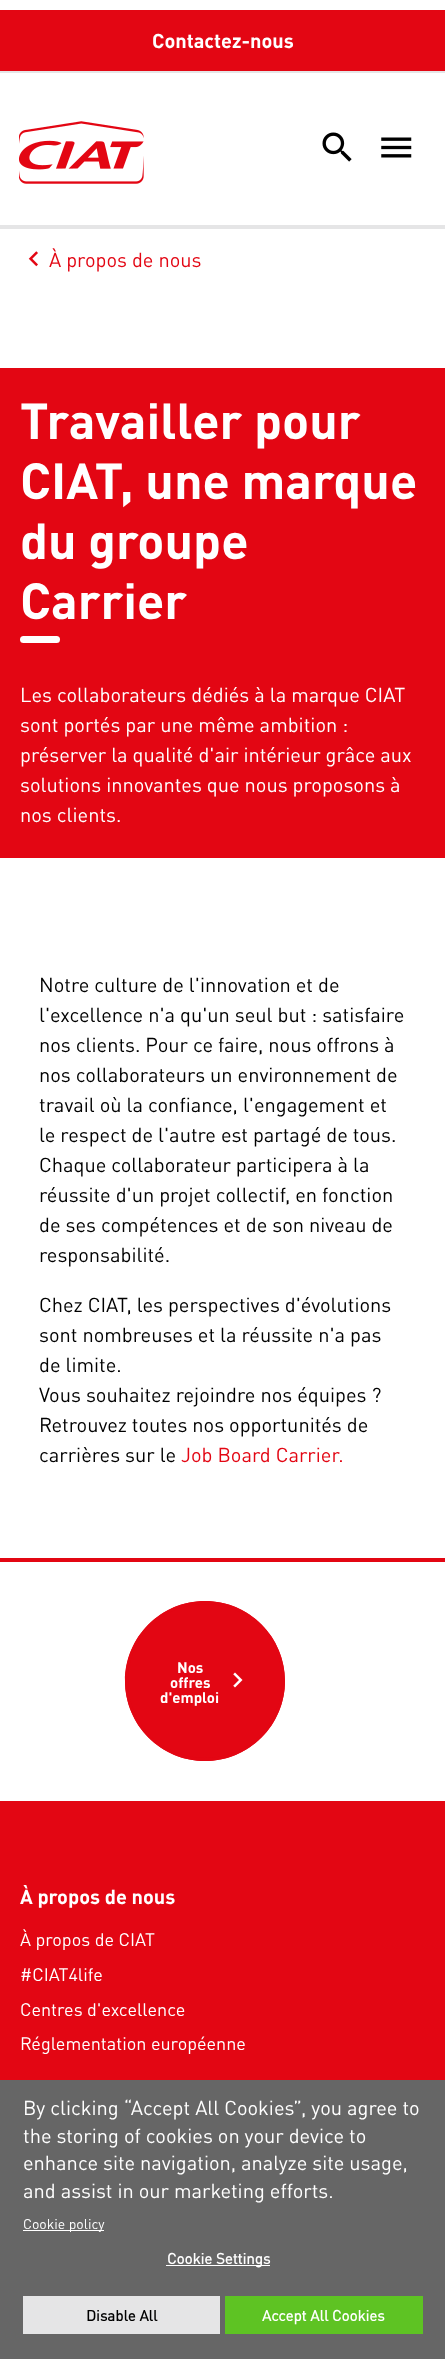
<!DOCTYPE html>
<meta charset="utf-8">
<style>body { margin: 0 } canvas { display: block }</style>
<canvas id="canvas" width="445" height="2359"></canvas>
<script type="module">
  const canvas = document.getElementById("canvas");
  const g = canvas.getContext("2d");
  g.miterLimit = 4;
  g.fontKerning = "normal";
  function drawText(s, x, y, [font, color]) {
    g.font = font;
    g.fillStyle = color;
    g.fillText(s, x, y);
  }
  function fillBox(x, y, w, h, color) {
    g.fillStyle = color;
    g.fillRect(x, y, w, h);
  }
  function fillRounded(x, y, w, h, r, color) {
    g.fillStyle = color;
    g.beginPath();
    g.roundRect(x, y, w, h, r);
    g.fill();
  }
  async function drawPicture(src, x, y, w, h) {
    const img = new Image();
    img.src = src;
    await img.decode();
    g.drawImage(img, x, y, w, h);
  }

  const s1 = ["bold 20px DIN", "#FFFFFF"];
  const s2 = ["20px DIN", "#E30613"];
  const s3 = ["bold 50px DIN", "#FFFFFF"];
  const s4 = ["20px DIN", "#FFFFFF"];
  const s5 = ["20px DIN", "#000000"];
  const s6 = ["bold 15px DIN", "#FFFFFF"];
  const s7 = ["18px DIN", "#FFFFFF"];
  const s8 = ["14px DIN", "#FFFFFF"];
  const s9 = ["bold 15px 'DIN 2'", "#FFFFFF"];
  const s10 = ["bold 15px 'DIN 2'", "#000000"];

  fillBox(0, 0, 445, 2359, "#FFFFFF");
  fillBox(0, 225, 445, 4, "#E5E5E6");
  fillBox(0, 71, 445, 2, "#E5E5E6");
  fillBox(0, 10, 445, 61, "#E30613");
  drawText("Contactez-nous", 152, 48, s1);
  await drawPicture("pic1.png", 19, 121, 125, 63);
  await drawPicture("pic2.png", 322, 132, 30, 30);
  await drawPicture("pic3.png", 381, 137, 31, 21);
  await drawPicture("pic4.png", 28, 251, 10, 16);
  drawText("À propos de nous", 49, 267, s2);
  fillBox(0, 368, 445, 490, "#E30613");
  drawText("Travailler pour", 20, 439, s3);
  drawText("CIAT, une marque", 20, 499, s3);
  drawText("du groupe", 20, 559, s3);
  drawText("Carrier", 20, 619, s3);
  fillRounded(20, 636, 40, 7, 3.5, "#FFFFFF");
  drawText("Les collaborateurs dédiés à la marque CIAT", 20, 702, s4);
  drawText("sont portés par une même ambition :", 20, 732, s4);
  drawText("préserver la qualité d'air intérieur grâce aux", 20, 762, s4);
  drawText("solutions innovantes que nous proposons à", 20, 792, s4);
  drawText("nos clients.", 20, 822, s4);
  drawText("Notre culture de l'innovation et de", 39, 992, s5);
  drawText("l'excellence n'a qu'un seul but : satisfaire", 39, 1022, s5);
  drawText("nos clients. Pour ce faire, nous offrons à", 39, 1052, s5);
  drawText("nos collaborateurs un environnement de", 39, 1082, s5);
  drawText("travail où la confiance, l'engagement et", 39, 1112, s5);
  drawText("le respect de l'autre est partagé de tous.", 39, 1142, s5);
  drawText("Chaque collaborateur participera à la", 39, 1172, s5);
  drawText("réussite d'un projet collectif, en fonction", 39, 1202, s5);
  drawText("de ses compétences et de son niveau de", 39, 1232, s5);
  drawText("responsabilité.", 39, 1262, s5);
  drawText("Chez CIAT, les perspectives d'évolutions", 39, 1312, s5);
  drawText("sont nombreuses et la réussite n'a pas", 39, 1342, s5);
  drawText("de limite.", 39, 1372, s5);
  drawText("Vous souhaitez rejoindre nos équipes ?", 39, 1402, s5);
  drawText("Retrouvez toutes nos opportunités de", 39, 1432, s5);
  drawText("carrières sur le", 39, 1462, s5);
  drawText("Job Board Carrier.", 181, 1462, s2);
  fillBox(0, 1558, 445, 4, "#E30613");
  g.beginPath();
  g.arc(205, 1681, 80, 0, Math.PI * 2);
  g.fill();
  g.beginPath();
  g.moveTo(205, 1601);
  g.bezierCurveTo(249, 1601, 285, 1637, 285, 1681);
  g.bezierCurveTo(285, 1725, 249, 1761, 205, 1761);
  g.bezierCurveTo(161, 1761, 125, 1725, 125, 1681);
  g.bezierCurveTo(125, 1637, 161, 1601, 205, 1601);
  g.closePath();
  g.moveTo(205, 1604);
  g.bezierCurveTo(162, 1604, 128, 1638, 128, 1681);
  g.bezierCurveTo(128, 1724, 162, 1758, 205, 1758);
  g.bezierCurveTo(248, 1758, 282, 1724, 282, 1681);
  g.bezierCurveTo(282, 1638, 248, 1604, 205, 1604);
  g.closePath();
  g.fill("evenodd");
  drawText("Nos", 177, 1673, s6);
  drawText("offres", 170, 1688, s6);
  await drawPicture("pic5.png", 233, 1672, 10, 16);
  drawText("d'emploi", 160, 1703, s6);
  fillBox(0, 1801, 445, 279, "#E30613");
  drawText("À propos de nous", 20, 1904, s1);
  drawText("À propos de CIAT", 20, 1946, s7);
  drawText("#CIAT4life", 20, 1981, s7);
  drawText("Centres d'excellence", 20, 2016, s7);
  drawText("Réglementation européenne", 20, 2050, s7);
  fillBox(0, 2080, 445, 279, "#666666");
  drawText("By clicking “Accept All Cookies”, you agree to", 23, 2115, s4);
  drawText("the storing of cookies on your device to", 23, 2143, s4);
  drawText("enhance site navigation, analyze site usage,", 23, 2170, s4);
  drawText("and assist in our marketing efforts.", 23, 2198, s4);
  fillBox(23, 2230, 81, 1, "#FFFFFF");
  drawText("Cookie policy", 23, 2229, s8);
  fillBox(166, 2265, 104, 1, "#FFFFFF");
  drawText("Cookie Settings", 167, 2264, s9);
  fillBox(23, 2296, 197, 38, "#E5E5E6");
  drawText("Disable All", 86, 2321, s10);
  fillBox(225, 2296, 198, 38, "#5EC323");
  drawText("Accept All Cookies", 262, 2321, s9);
</script>
